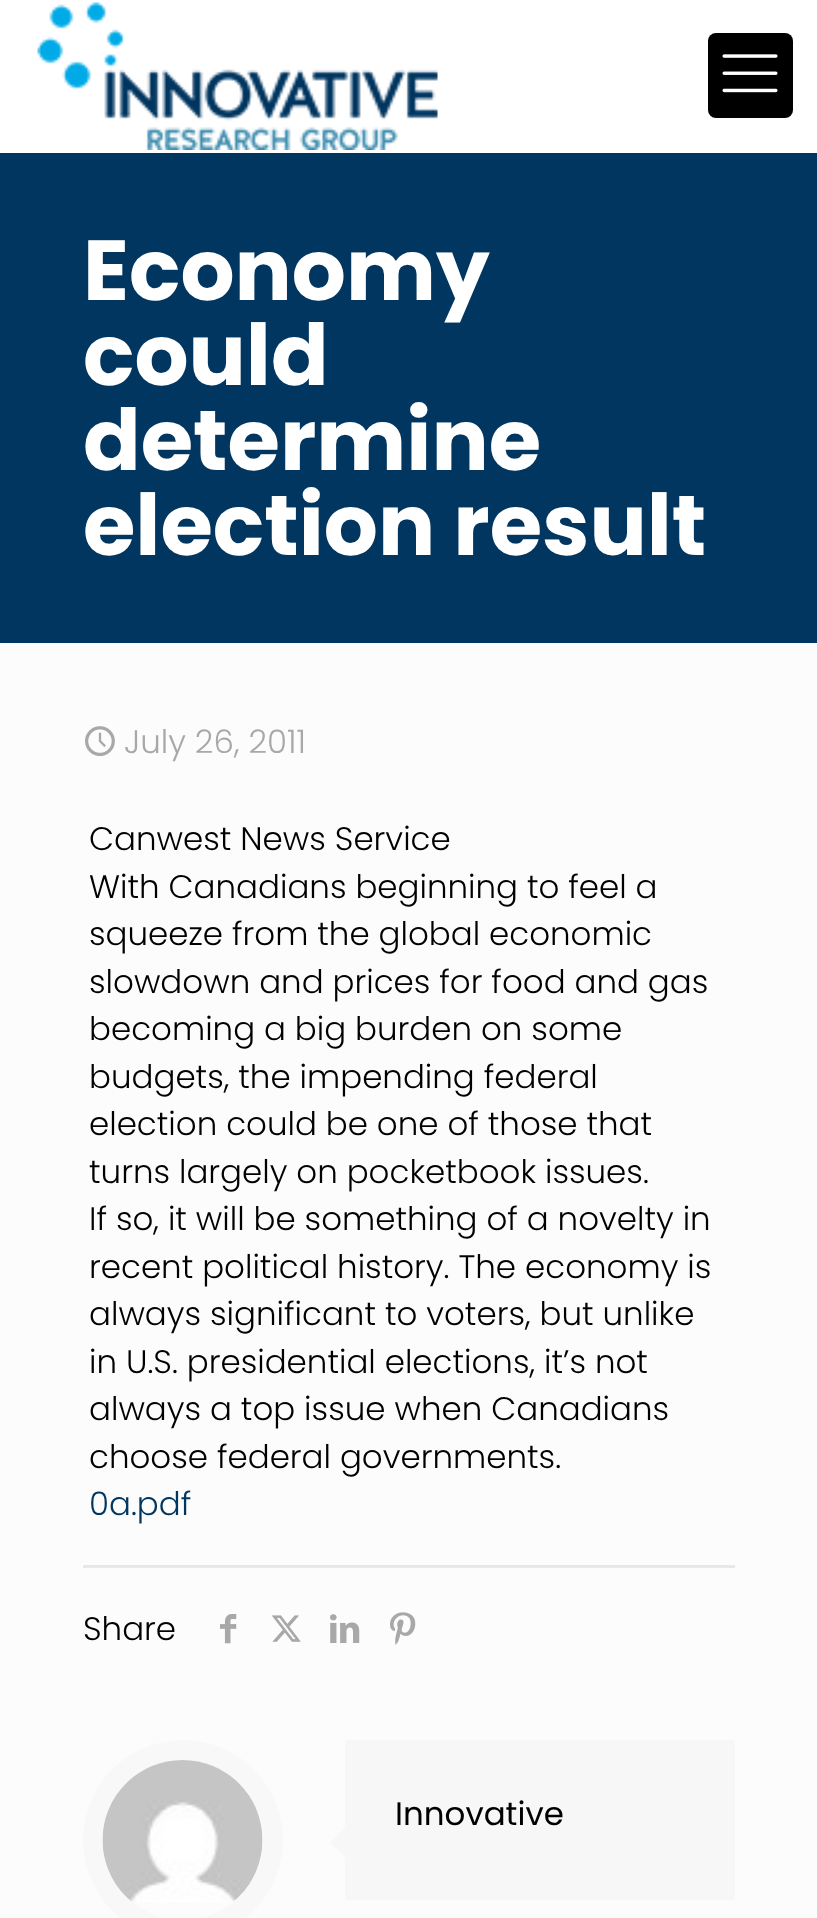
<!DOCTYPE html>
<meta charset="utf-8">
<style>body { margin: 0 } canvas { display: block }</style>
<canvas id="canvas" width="817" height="1918"></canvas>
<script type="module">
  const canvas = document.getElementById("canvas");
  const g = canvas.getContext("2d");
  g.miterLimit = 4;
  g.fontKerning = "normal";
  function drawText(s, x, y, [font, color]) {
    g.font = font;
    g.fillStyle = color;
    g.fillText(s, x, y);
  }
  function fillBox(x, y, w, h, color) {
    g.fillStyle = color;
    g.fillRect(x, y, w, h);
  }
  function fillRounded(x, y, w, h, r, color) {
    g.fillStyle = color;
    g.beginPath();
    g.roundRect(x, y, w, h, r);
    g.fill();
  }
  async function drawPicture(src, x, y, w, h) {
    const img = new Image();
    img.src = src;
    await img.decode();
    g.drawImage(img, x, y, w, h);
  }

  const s1 = ["bold 85px Poppins", "#FFFFFF"];
  const s2 = ["300 32.5px Poppins", "#A8A8A8"];
  const s3 = ["300 32.5px Poppins", "#000000"];
  const s4 = ["300 32.5px Poppins", "#013660"];
  const s5 = ["32.5px Poppins", "#000000"];

  fillBox(0, 0, 817, 1918, "#FCFCFC");
  fillBox(0, 153, 817, 490, "#013660");
  fillBox(0, 0, 817, 153, "#FFFFFF");
  await drawPicture("pic1.png", 37, 2, 401, 148);
  fillRounded(708, 33, 85, 85, 8, "#000000");
  await drawPicture("pic2.png", 722, 54, 56, 39);
  drawText("Economy", 83, 300, s1);
  drawText("could", 83, 385, s1);
  drawText("determine", 83, 470, s1);
  drawText("election result", 83, 555, s1);
  await drawPicture("pic3.png", 85, 726, 30, 30);
  drawText("July 26, 2011", 124, 753, s2);
  drawText("Canwest News Service", 89, 850, s3);
  drawText("With Canadians beginning to feel a", 89, 898, s3);
  drawText("squeeze from the global economic", 89, 945, s3);
  drawText("slowdown and prices for food and gas", 89, 993, s3);
  drawText("becoming a big burden on some", 89, 1040, s3);
  drawText("budgets, the impending federal", 89, 1088, s3);
  drawText("election could be one of those that", 89, 1135, s3);
  drawText("turns largely on pocketbook issues.", 89, 1183, s3);
  drawText("If so, it will be something of a novelty in", 89, 1230, s3);
  drawText("recent political history. The economy is", 89, 1278, s3);
  drawText("always significant to voters, but unlike", 89, 1325, s3);
  drawText("in U.S. presidential elections, it’s not", 89, 1373, s3);
  drawText("always a top issue when Canadians", 89, 1420, s3);
  drawText("choose federal governments.", 89, 1468, s3);
  drawText("0a.pdf", 89, 1515, s4);
  fillBox(83, 1565, 652, 3, "#E8E8E8");
  drawText("Share", 83, 1640, s3);
  await drawPicture("pic4.png", 220, 1614, 17, 30);
  await drawPicture("pic5.png", 271, 1615, 30, 27);
  await drawPicture("pic6.png", 330, 1614, 30, 29);
  await drawPicture("pic7.png", 390, 1612, 26, 33);
  g.beginPath();
  g.arc(183, 1840, 90, 0, Math.PI * 2);
  g.strokeStyle = "#F8F8F8";
  g.lineWidth = 20;
  g.stroke();
  await drawPicture("pic8.png", 102, 1760, 161, 142);
  fillBox(345, 1740, 390, 160, "#F7F7F7");
  drawText("Innovative", 395, 1825, s5);
  g.fillStyle = "#F7F7F7";
  g.beginPath();
  g.moveTo(345, 1827.5);
  g.lineTo(345, 1857.5);
  g.lineTo(330, 1842.5);
  g.closePath();
  g.fill();
</script>
